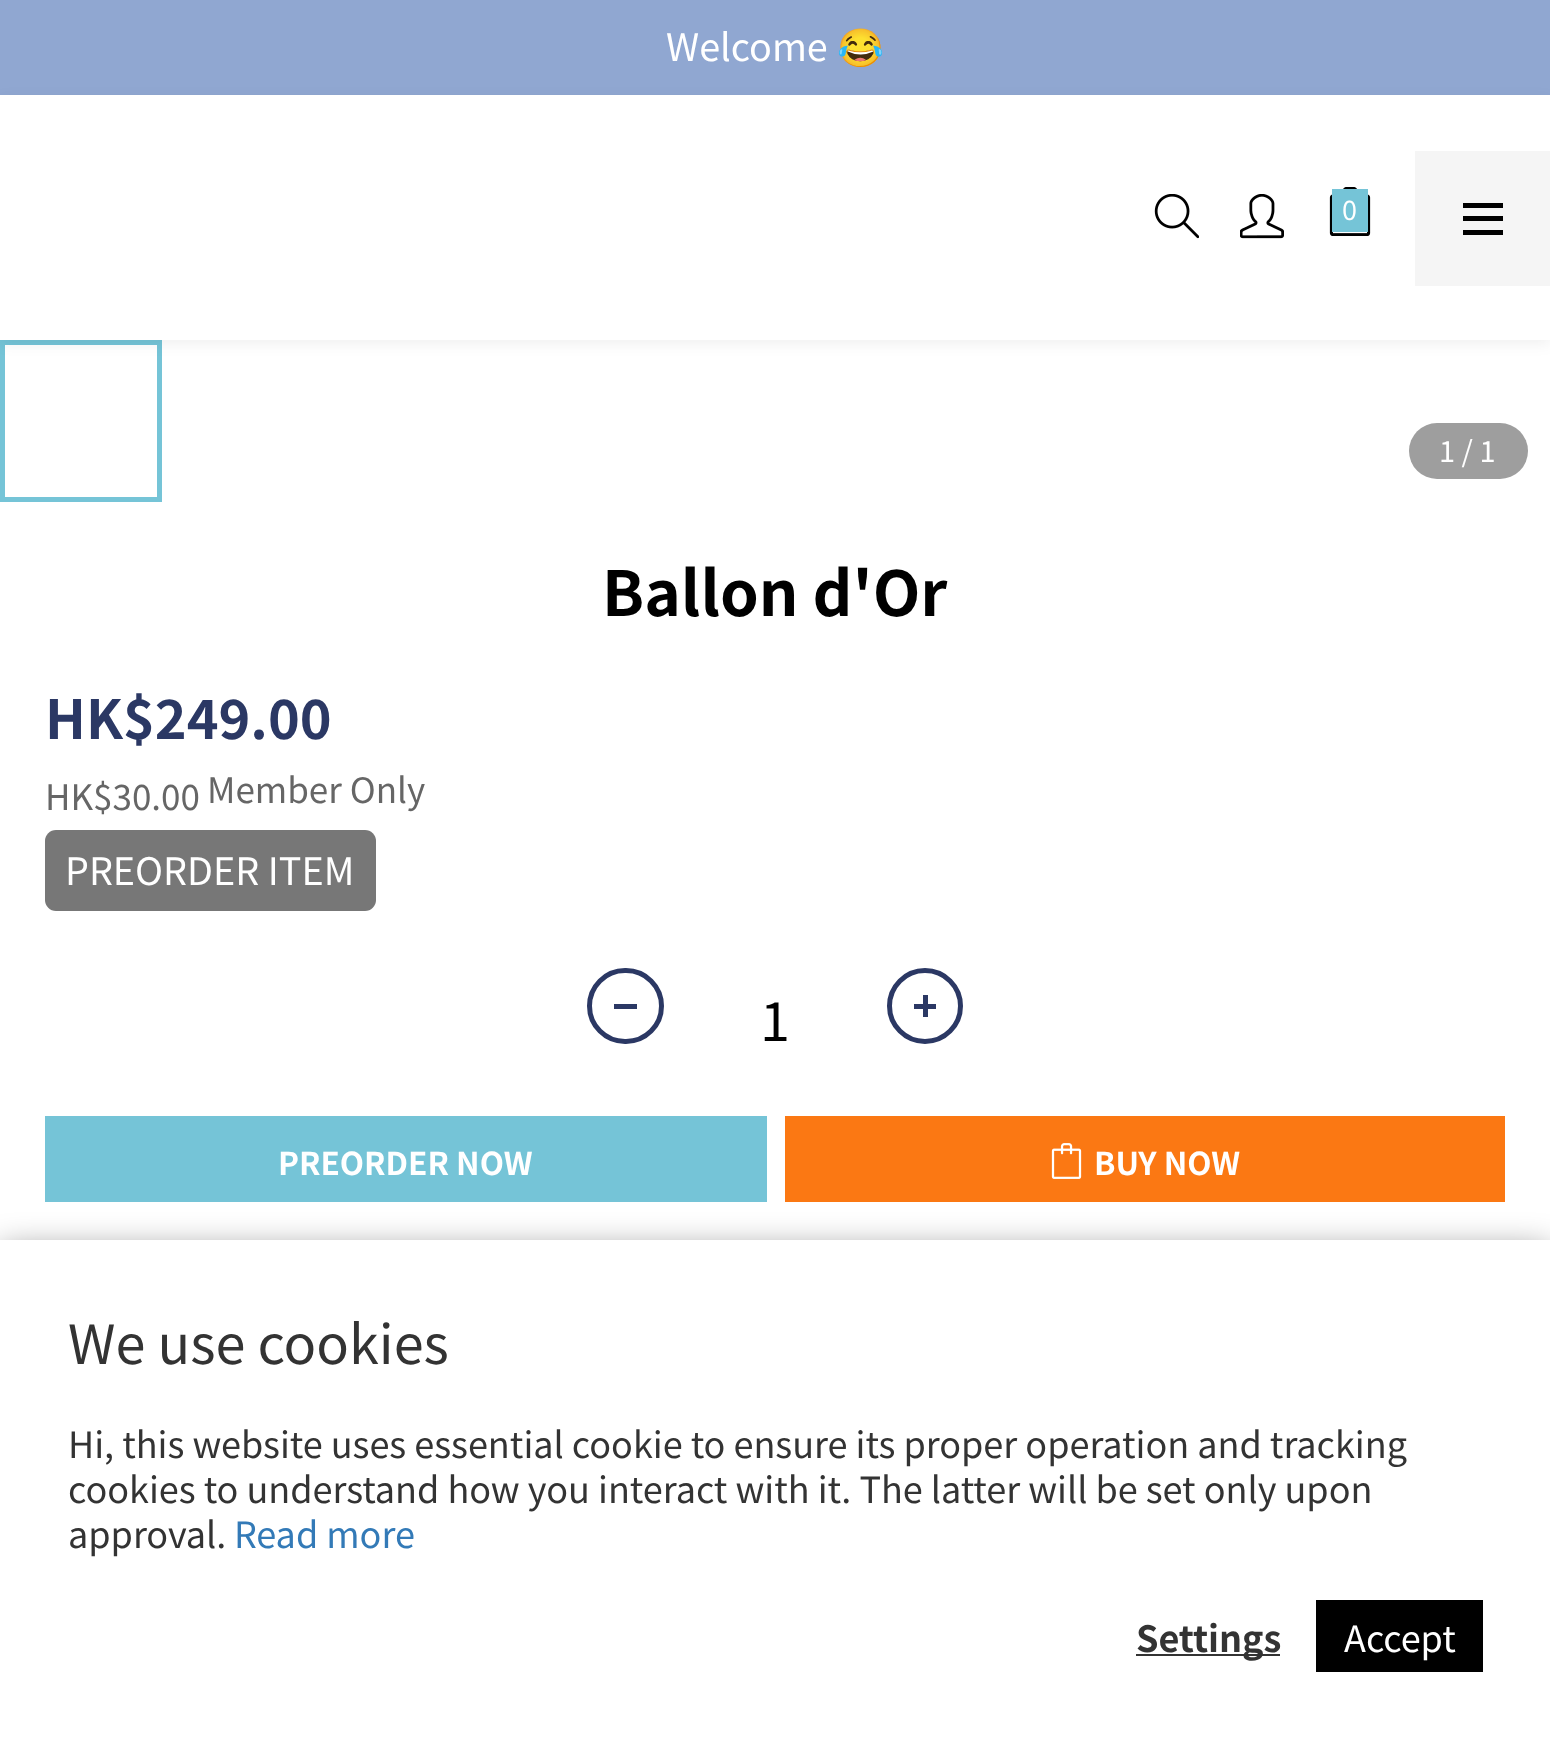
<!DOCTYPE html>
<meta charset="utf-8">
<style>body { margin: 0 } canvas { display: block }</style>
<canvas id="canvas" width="1550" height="1738"></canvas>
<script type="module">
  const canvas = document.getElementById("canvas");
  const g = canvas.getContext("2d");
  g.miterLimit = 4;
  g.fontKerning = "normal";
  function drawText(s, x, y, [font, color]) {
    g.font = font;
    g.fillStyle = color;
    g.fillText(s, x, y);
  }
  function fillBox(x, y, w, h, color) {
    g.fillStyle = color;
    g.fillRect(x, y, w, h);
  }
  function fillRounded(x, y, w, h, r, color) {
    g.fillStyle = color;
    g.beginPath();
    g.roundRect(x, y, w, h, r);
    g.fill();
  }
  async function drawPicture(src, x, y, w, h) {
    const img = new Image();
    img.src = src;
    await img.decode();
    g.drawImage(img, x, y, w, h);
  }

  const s1 = ["37.75px Noto Sans TC", "#FFFFFF"];
  const s2 = ["37.75px Noto Color Emoji", "#FFFFFF"];
  const s3 = ["27px Noto Sans TC", "#FFFFFF"];
  const s4 = ["29px Noto Sans TC", "#FFFFFF"];
  const s5 = ["bold 62px Noto Sans TC", "#000000"];
  const s6 = ["bold 54px Noto Sans TC", "#2B3864"];
  const s7 = ["35px Noto Sans TC", "#666666"];
  const s8 = ["54px Noto Sans TC", "#000000"];
  const s9 = ["bold 31.5px Noto Sans TC", "#FFFFFF"];
  const s10 = ["54px Noto Sans TC", "#333333"];
  const s11 = ["36px Noto Sans TC", "#333333"];
  const s12 = ["36px Noto Sans TC", "#337AB7"];
  const s13 = ["bold 36px Noto Sans TC", "#333333"];
  const s14 = ["36px Noto Sans TC", "#FFFFFF"];

  fillBox(0, 0, 1550, 1738, "#FFFFFF");
  fillBox(0, 0, 1550, 95, "#90A7D1");
  drawText("Welcome", 666, 61, s1);
  drawText("😂", 837, 61, s2);
  g.strokeStyle = "#75C4D7";
  g.lineWidth = 5;
  g.strokeRect(2.5, 342.5, 157, 157);
  g.fillStyle = "rgba(0, 0, 0, 0.06)";
  g.filter = "blur(7px)";
  g.beginPath();
  g.rect(0, 99, 1550, 245);
  g.fill();
  g.filter = "none";
  fillBox(0, 95, 1550, 245, "#FFFFFF");
  await drawPicture("pic1.png", 1154, 194, 45, 45);
  await drawPicture("pic2.png", 1240, 194, 44, 45);
  await drawPicture("pic3.png", 1329, 187, 42, 49);
  fillBox(1332, 189, 36, 43, "#75C4D7");
  drawText("0", 1342, 220, s3);
  fillBox(1415, 151, 135, 135, "#F5F5F5");
  fillBox(1463, 216, 40, 5, "#000000");
  fillBox(1463, 203, 40, 5, "#000000");
  fillBox(1463, 230, 40, 5, "#000000");
  fillRounded(1409, 423, 119, 56, 28, "#9E9E9E");
  drawText("1 / 1", 1439, 462, s4);
  drawText("Ballon d'Or", 602, 616, s5);
  drawText("HK$249.00", 45, 739, s6);
  drawText("HK$30.00", 45, 810, s7);
  drawText("Member Only", 207, 803, s7);
  fillRounded(45, 830, 331, 81, 11, "#777777");
  drawText("PREORDER ITEM", 65, 885, s1);
  g.beginPath();
  g.roundRect(589.5, 970.5, 72, 71, 35.5);
  g.strokeStyle = "#2B3864";
  g.stroke();
  fillBox(614, 1004, 23, 5, "#2B3864");
  drawText("1", 760, 1041, s8);
  g.beginPath();
  g.arc(925, 1006, 35.5, 0, Math.PI * 2);
  g.stroke();
  fillBox(914, 1004, 22, 5, "#2B3864");
  fillBox(923, 995, 5, 22, "#2B3864");
  fillBox(45, 1116, 722, 86, "#75C4D7");
  drawText("PREORDER NOW", 278, 1175, s9);
  fillBox(785, 1116, 720, 86, "#FB7813");
  await drawPicture("pic4.png", 1051, 1143, 31, 36);
  drawText("BUY NOW", 1094, 1175, s9);
  g.fillStyle = "rgba(0, 0, 0, 0.5)";
  g.filter = "blur(17px)";
  g.beginPath();
  g.rect(0, 1251, 1550, 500);
  g.fill();
  g.filter = "none";
  fillBox(0, 1240, 1550, 498, "#FFFFFF");
  drawText("We use cookies", 68, 1364, s10);
  drawText("Hi, this website uses essential cookie to ensure its proper operation and tracking", 68, 1458, s11);
  drawText("cookies to understand how you interact with it. The latter will be set only upon", 68, 1503, s11);
  drawText("approval.", 68, 1548, s11);
  drawText("Read more", 234, 1548, s12);
  fillBox(1136, 1654, 144, 2, "#333333");
  drawText("Settings", 1136, 1652, s13);
  fillBox(1316, 1600, 167, 72, "#000000");
  drawText("Accept", 1344, 1652, s14);
</script>
